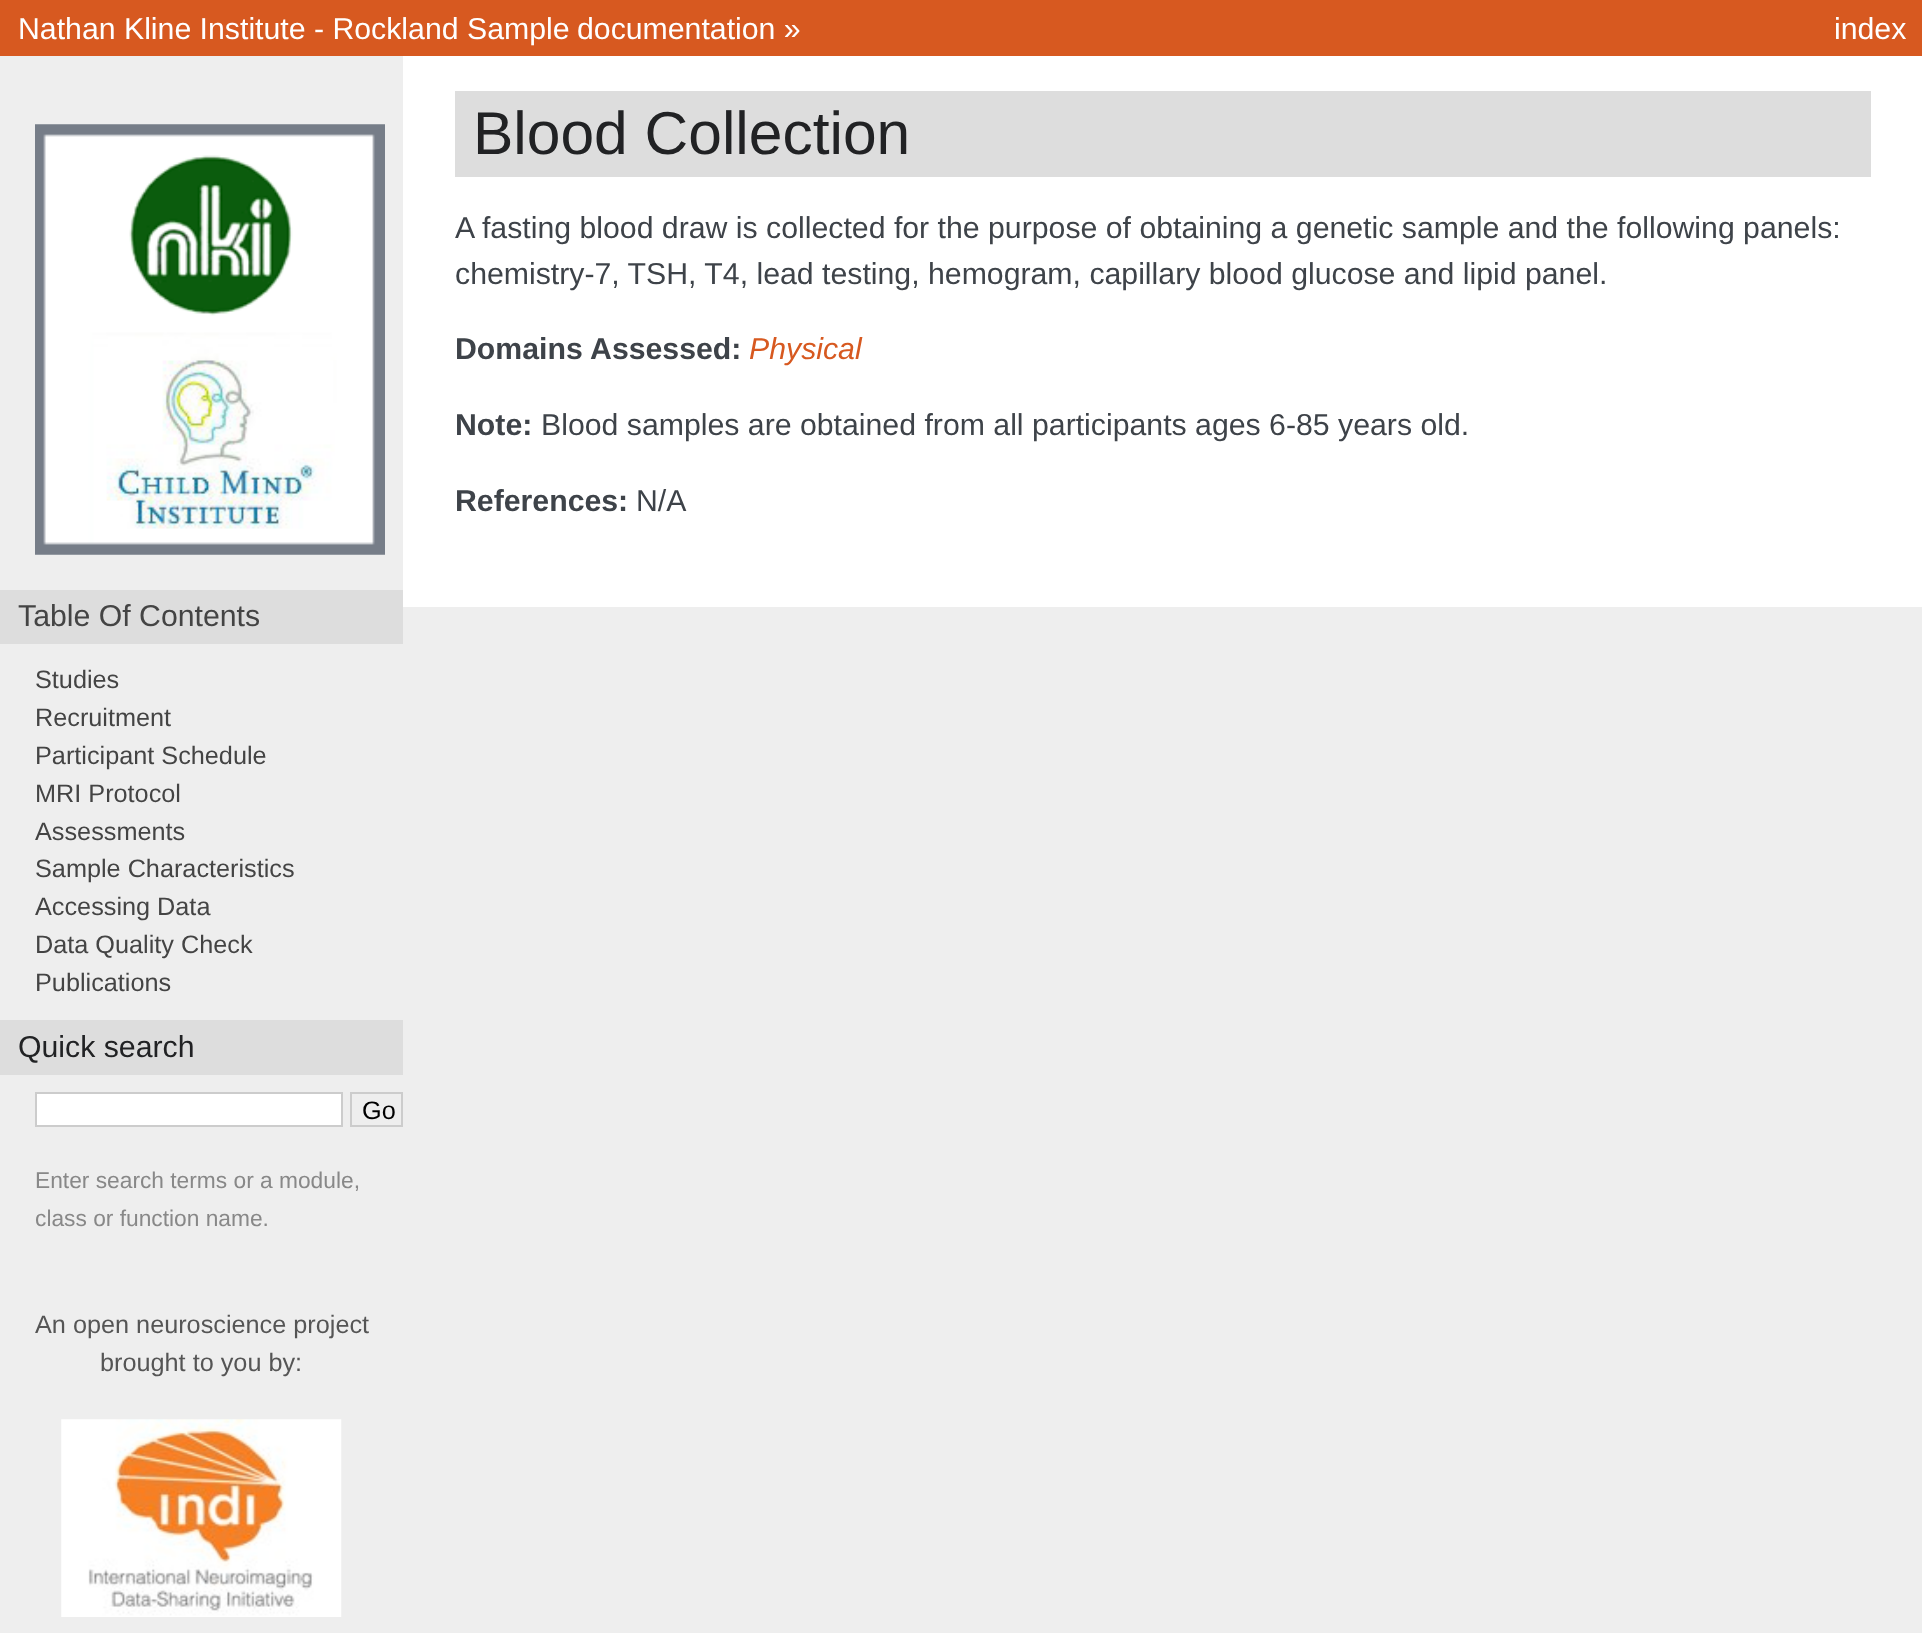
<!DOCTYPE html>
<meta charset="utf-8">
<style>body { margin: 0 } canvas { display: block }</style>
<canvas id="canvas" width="1922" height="1633"></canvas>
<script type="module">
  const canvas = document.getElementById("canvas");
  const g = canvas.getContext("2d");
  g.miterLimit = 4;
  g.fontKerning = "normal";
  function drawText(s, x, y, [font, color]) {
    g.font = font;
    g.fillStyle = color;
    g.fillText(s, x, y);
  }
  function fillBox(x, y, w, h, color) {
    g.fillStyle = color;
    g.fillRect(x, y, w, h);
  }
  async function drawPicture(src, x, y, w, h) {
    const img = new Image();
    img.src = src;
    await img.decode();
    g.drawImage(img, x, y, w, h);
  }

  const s1 = ["30.25px Liberation Sans", "#FFFFFF"];
  const s2 = ["60.5px Liberation Sans", "#212224"];
  const s3 = ["30.25px Liberation Sans", "#3E4349"];
  const s4 = ["bold 30.25px Liberation Sans", "#3E4349"];
  const s5 = ["italic 30.25px Liberation Sans", "#D75920"];
  const s6 = ["30.25px Liberation Sans", "#444444"];
  const s7 = ["25.25px Liberation Sans", "#444444"];
  const s8 = ["30.25px Liberation Sans", "#212224"];
  const s9 = ["25.25px Liberation Sans", "#000000"];
  const s10 = ["22.75px Liberation Sans", "#888888"];
  const s11 = ["25.25px Liberation Sans", "#555555"];

  fillBox(0, 0, 1922, 1633, "#D75920");
  drawText("Nathan Kline Institute - Rockland Sample", 18, 39, s1);
  drawText("documentation »", 577, 39, s1);
  drawText("index", 1834, 39, s1);
  fillBox(0, 56, 1922, 1577, "#EEEEEE");
  fillBox(403, 56, 1519, 551, "#FFFFFF");
  fillBox(455, 91, 1416, 86, "#DDDDDD");
  drawText("Blood Collection", 473, 154, s2);
  drawText("A fasting blood draw is collected for the purpose of obtaining a genetic sample and the following panels:", 455, 238, s3);
  drawText("chemistry-7, TSH, T4, lead testing, hemogram, capillary blood glucose and lipid panel.", 455, 284, s3);
  drawText("Domains Assessed:", 455, 359, s4);
  drawText("Physical", 749, 359, s5);
  drawText("Note:", 455, 435, s4);
  drawText("Blood samples are obtained from all participants ages 6-85 years old.", 541, 435, s3);
  drawText("References:", 455, 511, s4);
  drawText("N/A", 636, 511, s3);
  await drawPicture("pic1.png", 35, 124, 350, 431);
  fillBox(0, 590, 403, 54, "#DDDDDD");
  drawText("Table Of Contents", 18, 626, s6);
  drawText("Studies", 35, 688, s7);
  drawText("Recruitment", 35, 726, s7);
  drawText("Participant Schedule", 35, 764, s7);
  drawText("MRI Protocol", 35, 802, s7);
  drawText("Assessments", 35, 840, s7);
  drawText("Sample Characteristics", 35, 877, s7);
  drawText("Accessing Data", 35, 915, s7);
  drawText("Data Quality Check", 35, 953, s7);
  drawText("Publications", 35, 991, s7);
  fillBox(0, 1020, 403, 55, "#DDDDDD");
  drawText("Quick search", 18, 1057, s8);
  g.fillStyle = "#FFFFFF";
  g.beginPath();
  g.rect(36, 1093, 306, 33);
  g.fill();
  g.strokeStyle = "#CCCCCC";
  g.lineWidth = 2;
  g.stroke();
  g.strokeRect(351, 1093, 51, 33);
  drawText("Go", 362, 1119, s9);
  drawText("Enter search terms or a module,", 35, 1188, s10);
  drawText("class or function name.", 35, 1226, s10);
  drawText("An open neuroscience project", 35, 1333, s11);
  drawText("brought to you by:", 100, 1371, s11);
  await drawPicture("pic2.png", 61, 1419, 281, 198);
</script>
